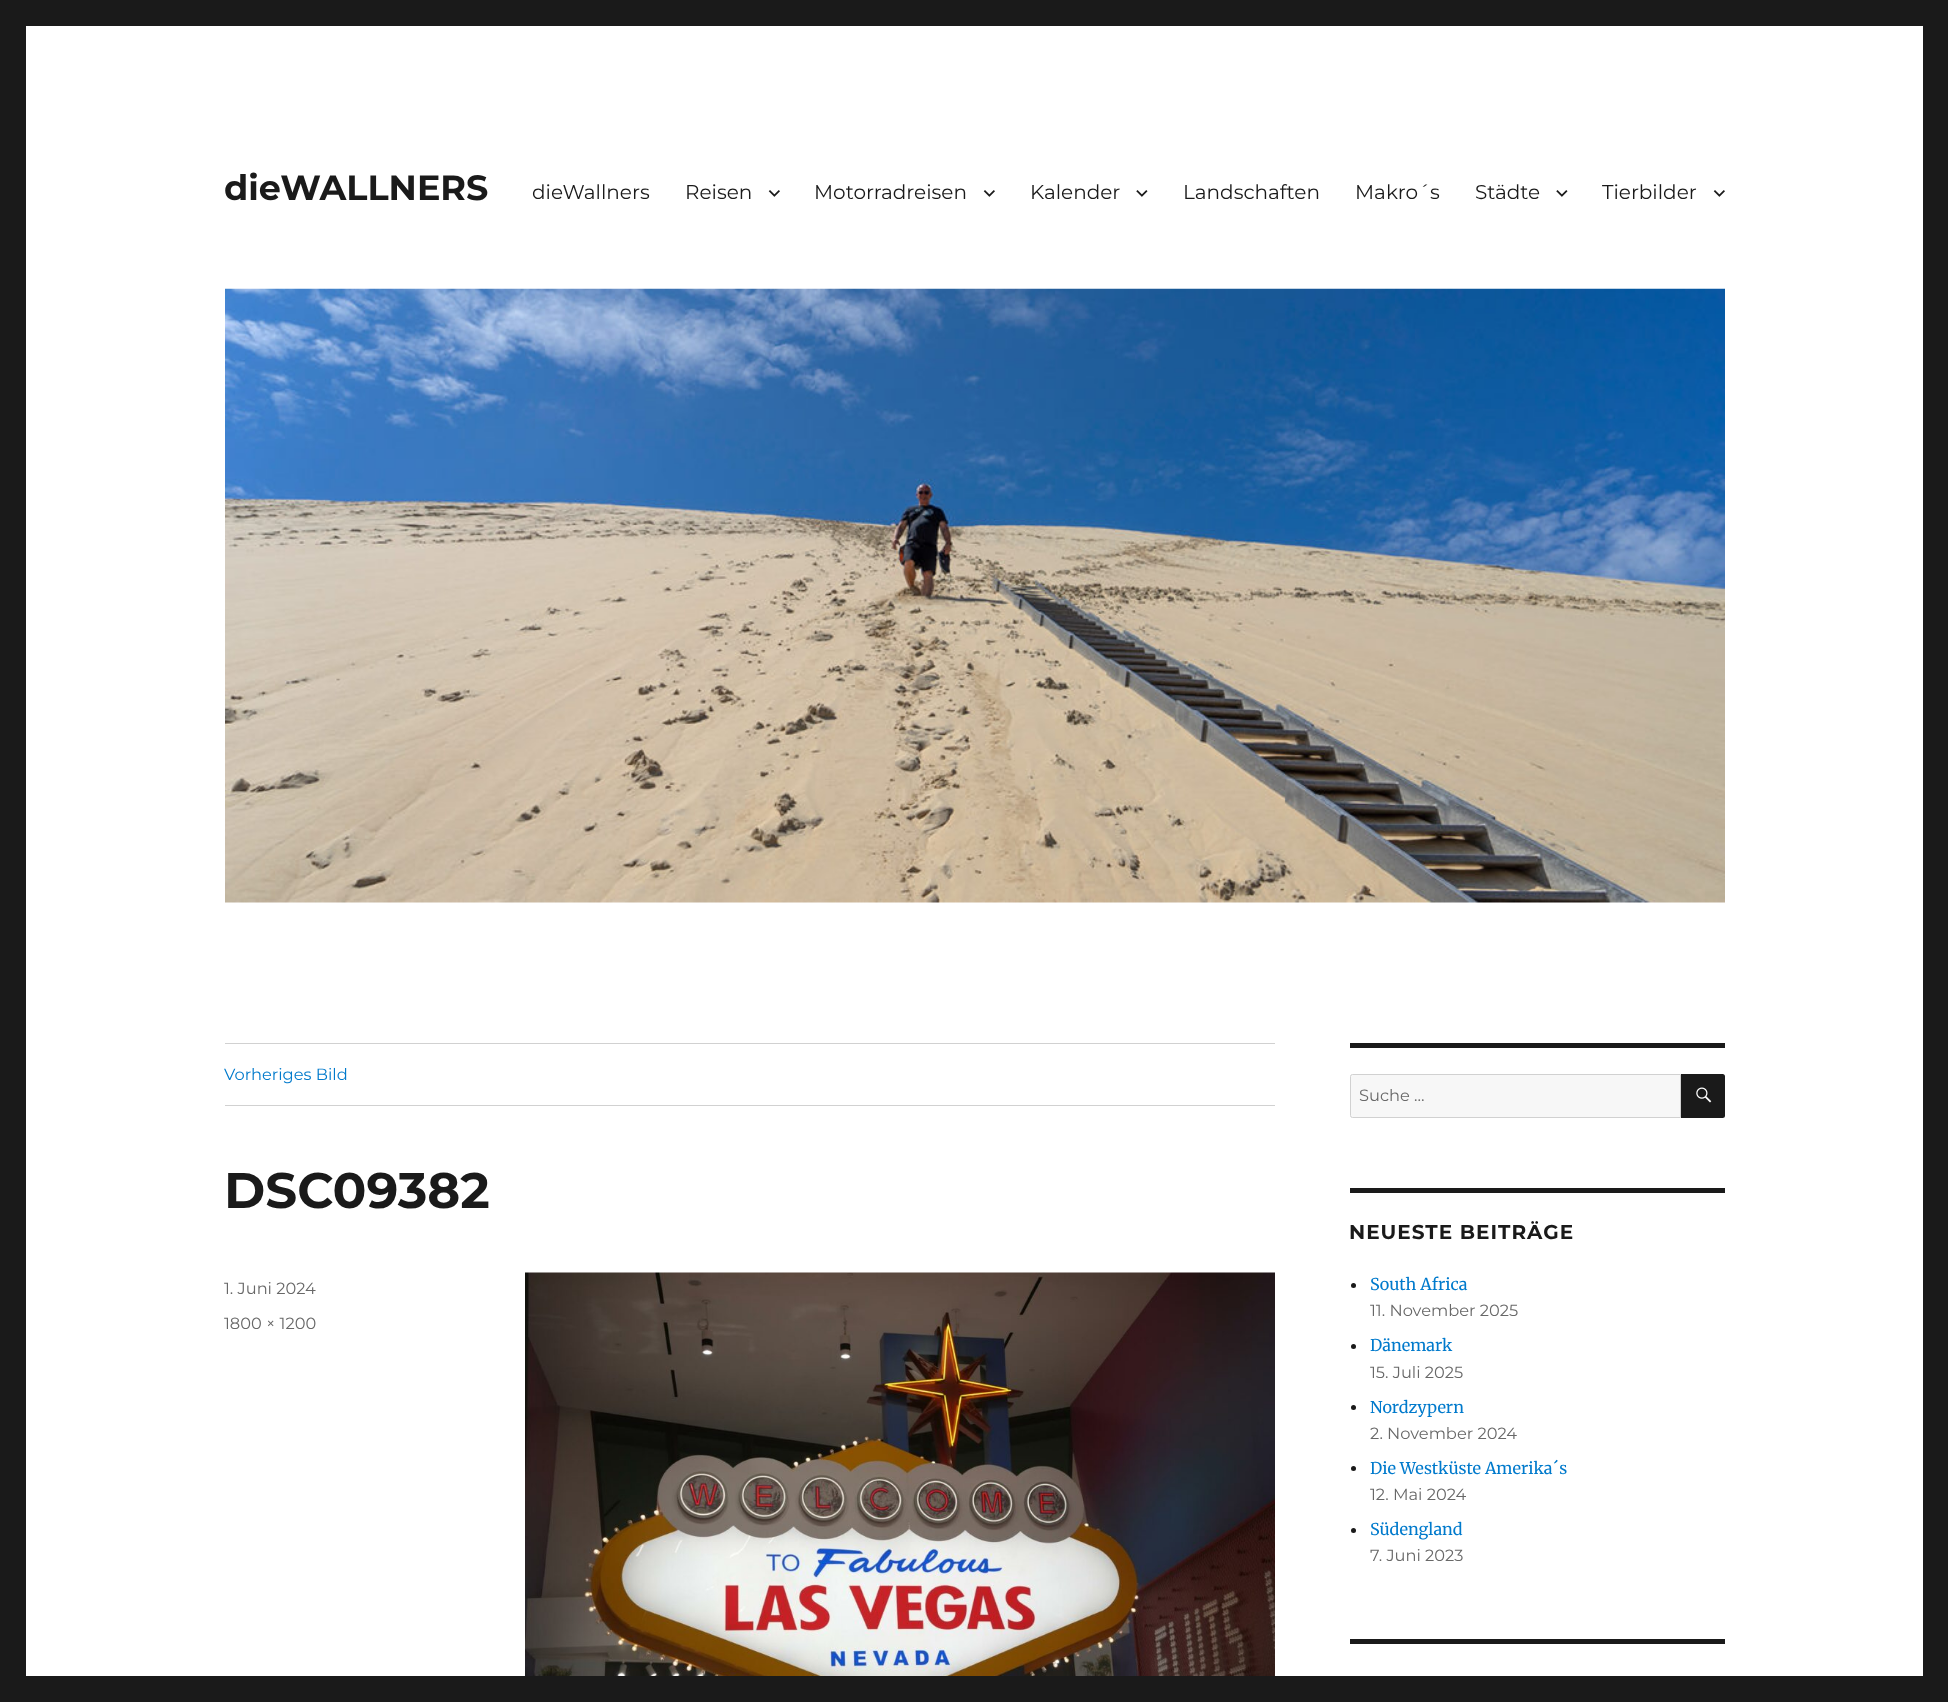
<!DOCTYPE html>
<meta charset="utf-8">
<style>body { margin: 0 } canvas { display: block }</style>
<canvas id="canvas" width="1948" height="1702"></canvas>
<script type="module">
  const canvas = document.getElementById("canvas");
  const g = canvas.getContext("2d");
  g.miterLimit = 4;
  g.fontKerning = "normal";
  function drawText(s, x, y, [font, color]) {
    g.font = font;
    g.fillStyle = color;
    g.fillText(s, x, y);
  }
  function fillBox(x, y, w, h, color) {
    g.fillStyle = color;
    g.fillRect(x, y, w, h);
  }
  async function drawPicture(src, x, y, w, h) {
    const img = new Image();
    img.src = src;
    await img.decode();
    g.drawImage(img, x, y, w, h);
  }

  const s1 = ["bold 35px Montserrat", "#1A1A1A"];
  const s2 = ["20px Montserrat", "#1A1A1A"];
  const s3 = ["16.25px Montserrat", "#007ACC"];
  const s4 = ["bold 50px Montserrat", "#1A1A1A"];
  const s5 = ["16.25px Montserrat", "#686868"];
  const s6 = ["bold 20px Montserrat", "#1A1A1A"];
  const s7 = ["16.25px Merriweather", "#007ACC"];

  fillBox(0, 0, 1948, 1702, "#1A1A1A");
  fillBox(26, 26, 1897, 1650, "#FFFFFF");
  drawText("dieWALLNERS", 224, 200, s1);
  drawText("dieWallners", 532, 199, s2);
  drawText("Reisen", 685, 199, s2);
  await drawPicture("pic1.png", 768, 190, 12, 7);
  drawText("Motorradreisen", 814, 199, s2);
  await drawPicture("pic1.png", 983, 190, 12, 7);
  drawText("Kalender", 1030, 199, s2);
  await drawPicture("pic2.png", 1136, 190, 12, 7);
  drawText("Landschaften", 1183, 199, s2);
  drawText("Makro´s", 1355, 199, s2);
  drawText("Städte", 1475, 199, s2);
  await drawPicture("pic2.png", 1556, 190, 12, 7);
  drawText("Tierbilder", 1602, 199, s2);
  await drawPicture("pic1.png", 1713, 190, 12, 7);
  await drawPicture("pic3.png", 225, 288, 1500, 615);
  fillBox(225, 1043, 1050, 1, "#D1D1D1");
  fillBox(225, 1105, 1050, 1, "#D1D1D1");
  drawText("Vorheriges Bild", 224, 1080, s3);
  drawText("DSC09382", 224, 1208, s4);
  drawText("1. Juni 2024", 224, 1294, s5);
  drawText("1800 × 1200", 224, 1329, s5);
  await drawPicture("pic4.png", 525, 1272, 750, 404);
  fillBox(1350, 1043, 375, 5, "#1A1A1A");
  g.fillStyle = "#F7F7F7";
  g.beginPath();
  g.roundRect(1350.5, 1074.5, 330, 43, [2, 0, 0, 2]);
  g.fill();
  g.strokeStyle = "#D1D1D1";
  g.stroke();
  drawText("Suche …", 1359, 1101, s5);
  g.fillStyle = "#1A1A1A";
  g.beginPath();
  g.roundRect(1681, 1074, 44, 44, [0, 2.5, 2.5, 0]);
  g.fill();
  await drawPicture("pic5.png", 1696, 1087, 16, 16);
  fillBox(1350, 1188, 375, 5, "#1A1A1A");
  g.letterSpacing = "1px";
  drawText("NEUESTE BEITRÄGE", 1349, 1239, s6);
  g.beginPath();
  g.arc(1353.5, 1285.5, 2.5, 0, Math.PI * 2);
  g.fill();
  g.letterSpacing = "0px";
  drawText("South Africa", 1370, 1290, s7);
  drawText("11. November 2025", 1370, 1316, s5);
  g.fillStyle = "#1A1A1A";
  g.beginPath();
  g.arc(1353.5, 1346.5, 2.5, 0, Math.PI * 2);
  g.fill();
  drawText("Dänemark", 1370, 1351, s7);
  drawText("15. Juli 2025", 1370, 1378, s5);
  g.fillStyle = "#1A1A1A";
  g.beginPath();
  g.arc(1353.5, 1407.5, 2.5, 0, Math.PI * 2);
  g.fill();
  drawText("Nordzypern", 1370, 1413, s7);
  drawText("2. November 2024", 1370, 1439, s5);
  g.fillStyle = "#1A1A1A";
  g.beginPath();
  g.arc(1353.5, 1468.5, 2.5, 0, Math.PI * 2);
  g.fill();
  drawText("Die Westküste Amerika´s", 1370, 1474, s7);
  drawText("12. Mai 2024", 1370, 1500, s5);
  g.fillStyle = "#1A1A1A";
  g.beginPath();
  g.arc(1353.5, 1530.5, 2.5, 0, Math.PI * 2);
  g.fill();
  drawText("Südengland", 1370, 1535, s7);
  drawText("7. Juni 2023", 1370, 1561, s5);
  fillBox(1350, 1639, 375, 5, "#1A1A1A");
</script>
